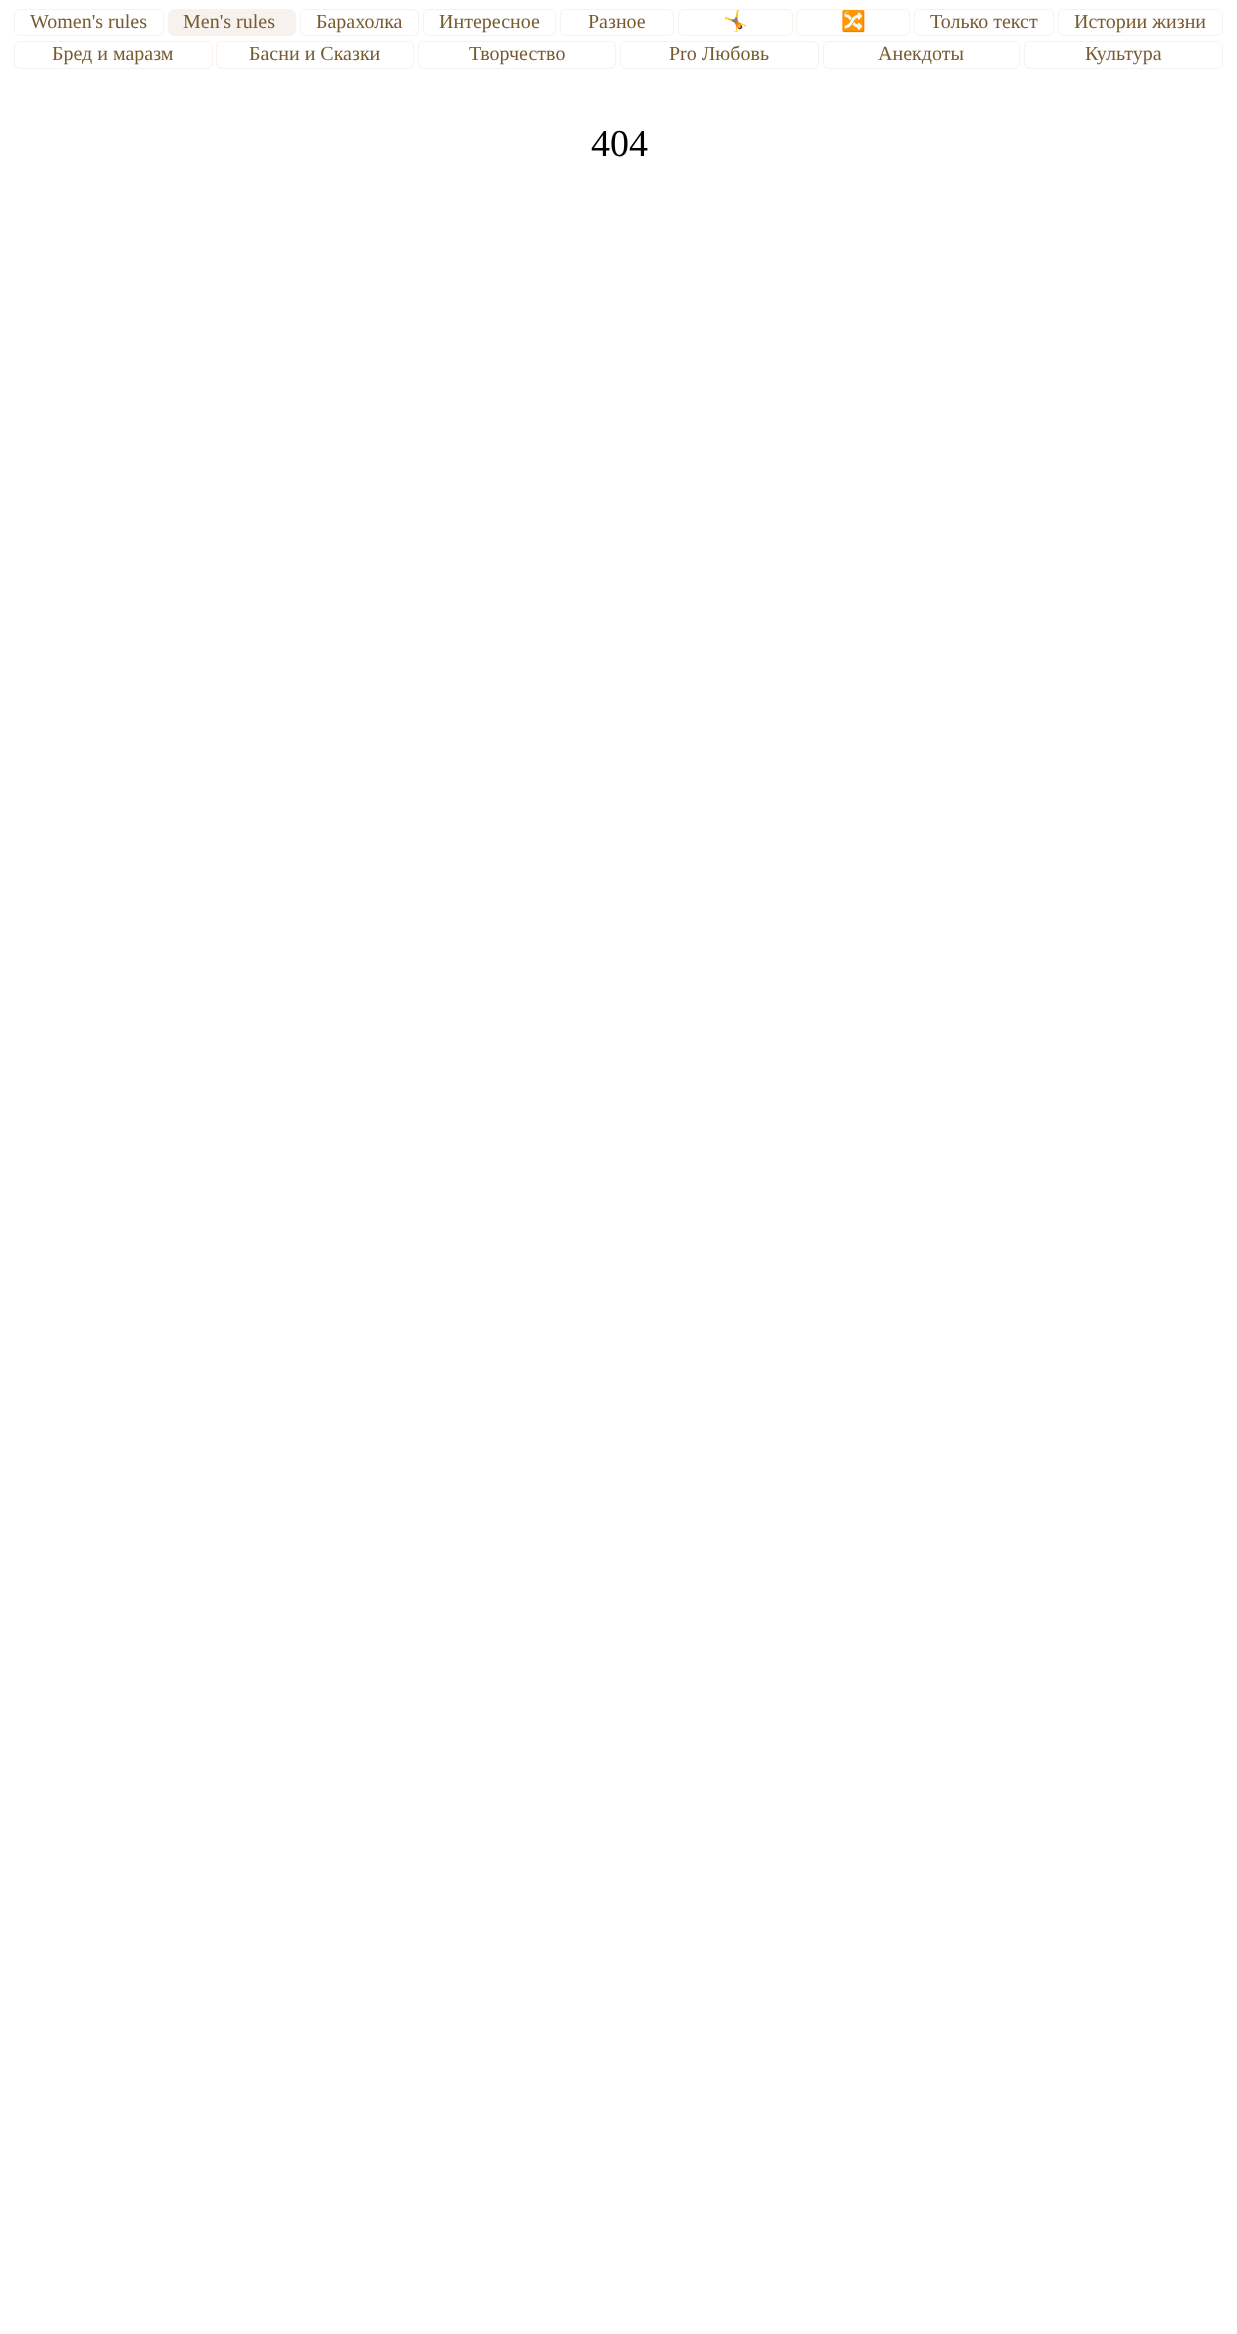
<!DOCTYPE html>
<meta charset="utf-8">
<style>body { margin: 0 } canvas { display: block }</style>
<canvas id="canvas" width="1237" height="2334"></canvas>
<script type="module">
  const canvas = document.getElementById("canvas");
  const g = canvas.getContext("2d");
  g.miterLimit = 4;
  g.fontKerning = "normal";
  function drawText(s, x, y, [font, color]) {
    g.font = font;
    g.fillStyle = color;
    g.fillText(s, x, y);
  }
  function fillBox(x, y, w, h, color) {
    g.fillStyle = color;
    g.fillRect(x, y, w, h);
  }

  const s1 = ["20px Liberation Serif", "#775B30"];
  const s2 = ["20px Noto Color Emoji", "#775B30"];
  const s3 = ["38px Liberation Serif", "#000000"];

  fillBox(0, 0, 1237, 2334, "#FFFFFF");
  g.beginPath();
  g.roundRect(14.5, 9.5, 149, 26, 5.5);
  g.strokeStyle = "#F7F2EE";
  g.stroke();
  drawText("Women's rules", 30, 28, s1);
  g.fillStyle = "#F7F2EE";
  g.beginPath();
  g.roundRect(168.5, 9.5, 127, 26, 5.5);
  g.fill();
  g.stroke();
  drawText("Men's rules", 183, 28, s1);
  g.beginPath();
  g.roundRect(300.5, 9.5, 118, 26, 5.5);
  g.stroke();
  drawText("Барахолка", 316, 28, s1);
  g.beginPath();
  g.roundRect(423.5, 9.5, 132, 26, 5.5);
  g.stroke();
  drawText("Интересное", 439, 28, s1);
  g.beginPath();
  g.roundRect(560.5, 9.5, 113, 26, 5.5);
  g.stroke();
  drawText("Разное", 588, 28, s1);
  g.beginPath();
  g.roundRect(678.5, 9.5, 114, 26, 5.5);
  g.stroke();
  drawText("🤸", 723, 28, s2);
  g.beginPath();
  g.roundRect(796.5, 9.5, 113, 26, 5.5);
  g.stroke();
  drawText("🔀", 841, 28, s2);
  g.beginPath();
  g.roundRect(914.5, 9.5, 139, 26, 5.5);
  g.stroke();
  drawText("Только текст", 930, 28, s1);
  g.beginPath();
  g.roundRect(1058.5, 9.5, 164, 26, 5.5);
  g.stroke();
  drawText("Истории жизни", 1074, 28, s1);
  g.beginPath();
  g.roundRect(14.5, 41.5, 198, 27, 5.5);
  g.stroke();
  drawText("Бред и маразм", 52, 60, s1);
  g.beginPath();
  g.roundRect(216.5, 41.5, 197, 27, 5.5);
  g.stroke();
  drawText("Басни и Сказки", 249, 60, s1);
  g.beginPath();
  g.roundRect(418.5, 41.5, 197, 27, 5.5);
  g.stroke();
  drawText("Творчество", 469, 60, s1);
  g.beginPath();
  g.roundRect(620.5, 41.5, 198, 27, 5.5);
  g.stroke();
  drawText("Pro Любовь", 669, 60, s1);
  g.beginPath();
  g.roundRect(823.5, 41.5, 196, 27, 5.5);
  g.stroke();
  drawText("Анекдоты", 878, 60, s1);
  g.beginPath();
  g.roundRect(1024.5, 41.5, 198, 27, 5.5);
  g.stroke();
  drawText("Культура", 1085, 60, s1);
  drawText("404", 591, 156, s3);
</script>
